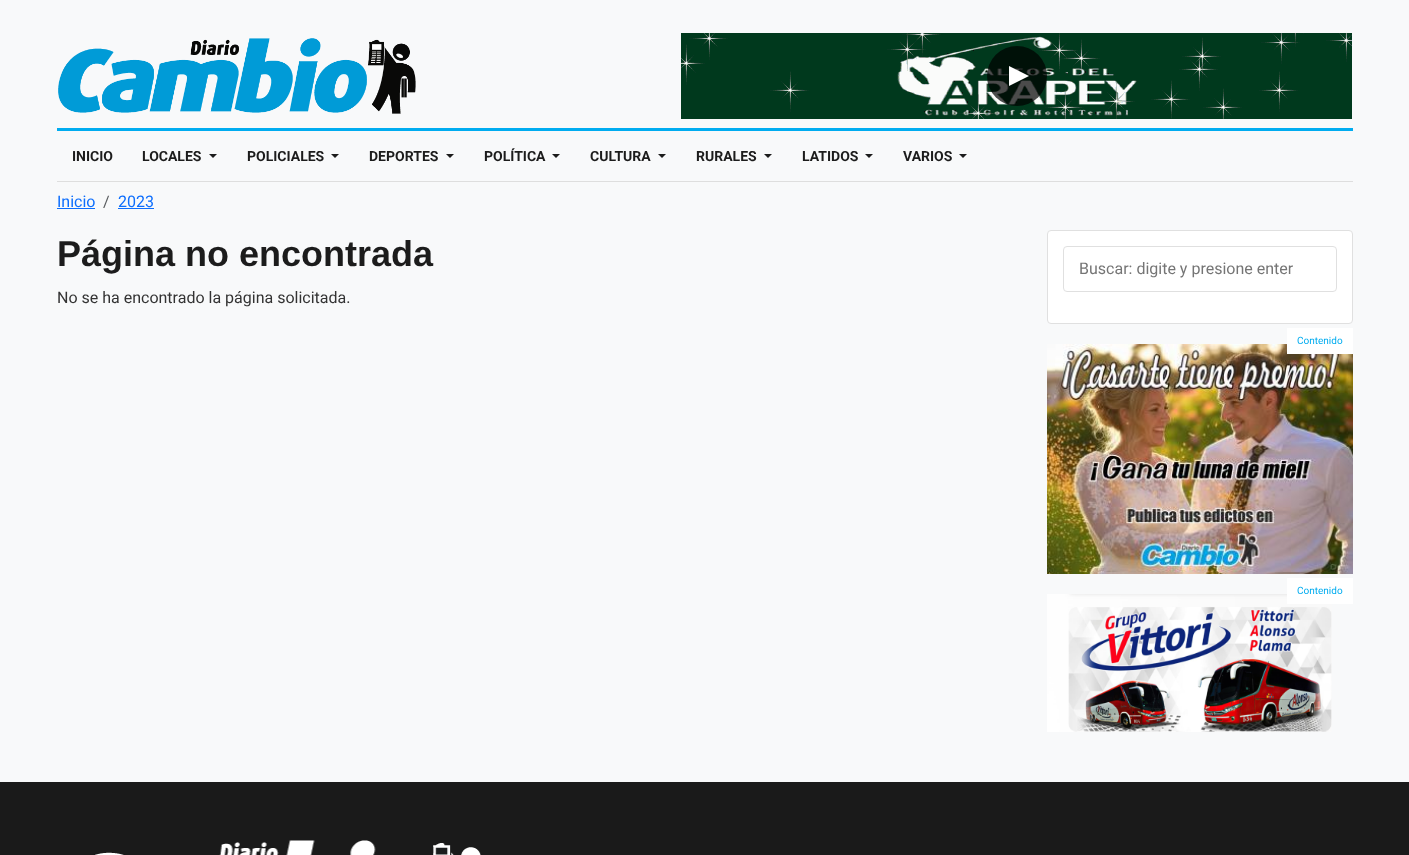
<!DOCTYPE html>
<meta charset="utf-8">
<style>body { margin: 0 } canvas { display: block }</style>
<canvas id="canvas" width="1409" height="855"></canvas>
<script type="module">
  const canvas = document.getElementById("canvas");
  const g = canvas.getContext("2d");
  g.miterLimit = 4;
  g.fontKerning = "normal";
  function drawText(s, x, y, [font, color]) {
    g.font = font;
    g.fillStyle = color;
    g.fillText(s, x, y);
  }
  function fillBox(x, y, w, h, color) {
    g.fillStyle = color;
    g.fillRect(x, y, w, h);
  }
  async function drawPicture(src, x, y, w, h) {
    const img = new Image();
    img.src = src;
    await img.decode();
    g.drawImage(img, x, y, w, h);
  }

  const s1 = ["bold 14px Roboto", "#1C1C1C"];
  const s2 = ["16px Roboto", "#0D6EFD"];
  const s3 = ["16px Roboto", "#575A5D"];
  const s4 = ["bold 36px Arimo", "#1C1C1C"];
  const s5 = ["16px Roboto", "#333333"];
  const s6 = ["16px Roboto", "#757575"];
  const s7 = ["10px Roboto", "#00ACF0"];

  fillBox(0, 0, 1409, 855, "#F8F9FA");
  await drawPicture("pic1.png", 58, 38, 358, 76);
  await drawPicture("pic2.png", 681, 33, 671, 86);
  g.fillStyle = "rgba(0, 0, 0, 0.7)";
  g.beginPath();
  g.arc(1017, 76, 30, 0, Math.PI * 2);
  g.fill();
  g.fillStyle = "#FFFFFF";
  g.beginPath();
  g.moveTo(1009, 86);
  g.lineTo(1009, 66);
  g.lineTo(1029, 76);
  g.closePath();
  g.fill();
  fillBox(57, 128, 1296, 3, "#00ACF0");
  fillBox(57, 181, 1296, 1, "#DEDEDE");
  drawText("INICIO", 72, 161, s1);
  drawText("LOCALES", 142, 161, s1);
  g.beginPath();
  g.moveTo(209, 154);
  g.lineTo(217, 154);
  g.lineTo(213, 158);
  g.closePath();
  g.fill();
  drawText("POLICIALES", 247, 161, s1);
  g.beginPath();
  g.moveTo(331, 154);
  g.lineTo(339, 154);
  g.lineTo(335, 158);
  g.closePath();
  g.fill();
  drawText("DEPORTES", 369, 161, s1);
  g.beginPath();
  g.moveTo(446, 154);
  g.lineTo(454, 154);
  g.lineTo(450, 158);
  g.closePath();
  g.fill();
  drawText("POLÍTICA", 484, 161, s1);
  g.beginPath();
  g.moveTo(552, 154);
  g.lineTo(560, 154);
  g.lineTo(556, 158);
  g.closePath();
  g.fill();
  drawText("CULTURA", 590, 161, s1);
  g.beginPath();
  g.moveTo(658, 154);
  g.lineTo(666, 154);
  g.lineTo(662, 158);
  g.closePath();
  g.fill();
  drawText("RURALES", 696, 161, s1);
  g.beginPath();
  g.moveTo(764, 154);
  g.lineTo(772, 154);
  g.lineTo(768, 158);
  g.closePath();
  g.fill();
  drawText("LATIDOS", 802, 161, s1);
  g.beginPath();
  g.moveTo(865, 154);
  g.lineTo(873, 154);
  g.lineTo(869, 158);
  g.closePath();
  g.fill();
  drawText("VARIOS", 903, 161, s1);
  g.beginPath();
  g.moveTo(959, 154);
  g.lineTo(967, 154);
  g.lineTo(963, 158);
  g.closePath();
  g.fill();
  drawText("Inicio", 57, 207, s2);
  fillBox(57, 208, 38, 1, "#0D6EFD");
  drawText("/", 103, 207, s3);
  drawText("2023", 118, 207, s2);
  fillBox(118, 208, 36, 1, "#0D6EFD");
  drawText("Página no encontrada", 57, 266, s4);
  drawText("No se ha encontrado la página solicitada.", 57, 303, s5);
  g.fillStyle = "#FFFFFF";
  g.beginPath();
  g.roundRect(1047.5, 230.5, 305, 93, 3.5);
  g.fill();
  g.strokeStyle = "#E0E0E0";
  g.stroke();
  g.beginPath();
  g.roundRect(1063.5, 246.5, 273, 45, 3.5);
  g.stroke();
  drawText("Buscar: digite y presione enter", 1079, 274, s6);
  await drawPicture("pic3.png", 1047, 344, 306, 230);
  fillBox(1287, 328, 66, 26, "#FFFFFF");
  drawText("Contenido", 1297, 344, s7);
  await drawPicture("pic4.png", 1047, 594, 285, 138);
  fillBox(1287, 578, 66, 26, "#FFFFFF");
  drawText("Contenido", 1297, 594, s7);
  fillBox(0, 782, 1409, 73, "#1A1A1A");
  await drawPicture("pic5.png", 95, 840, 386, 15);
</script>
